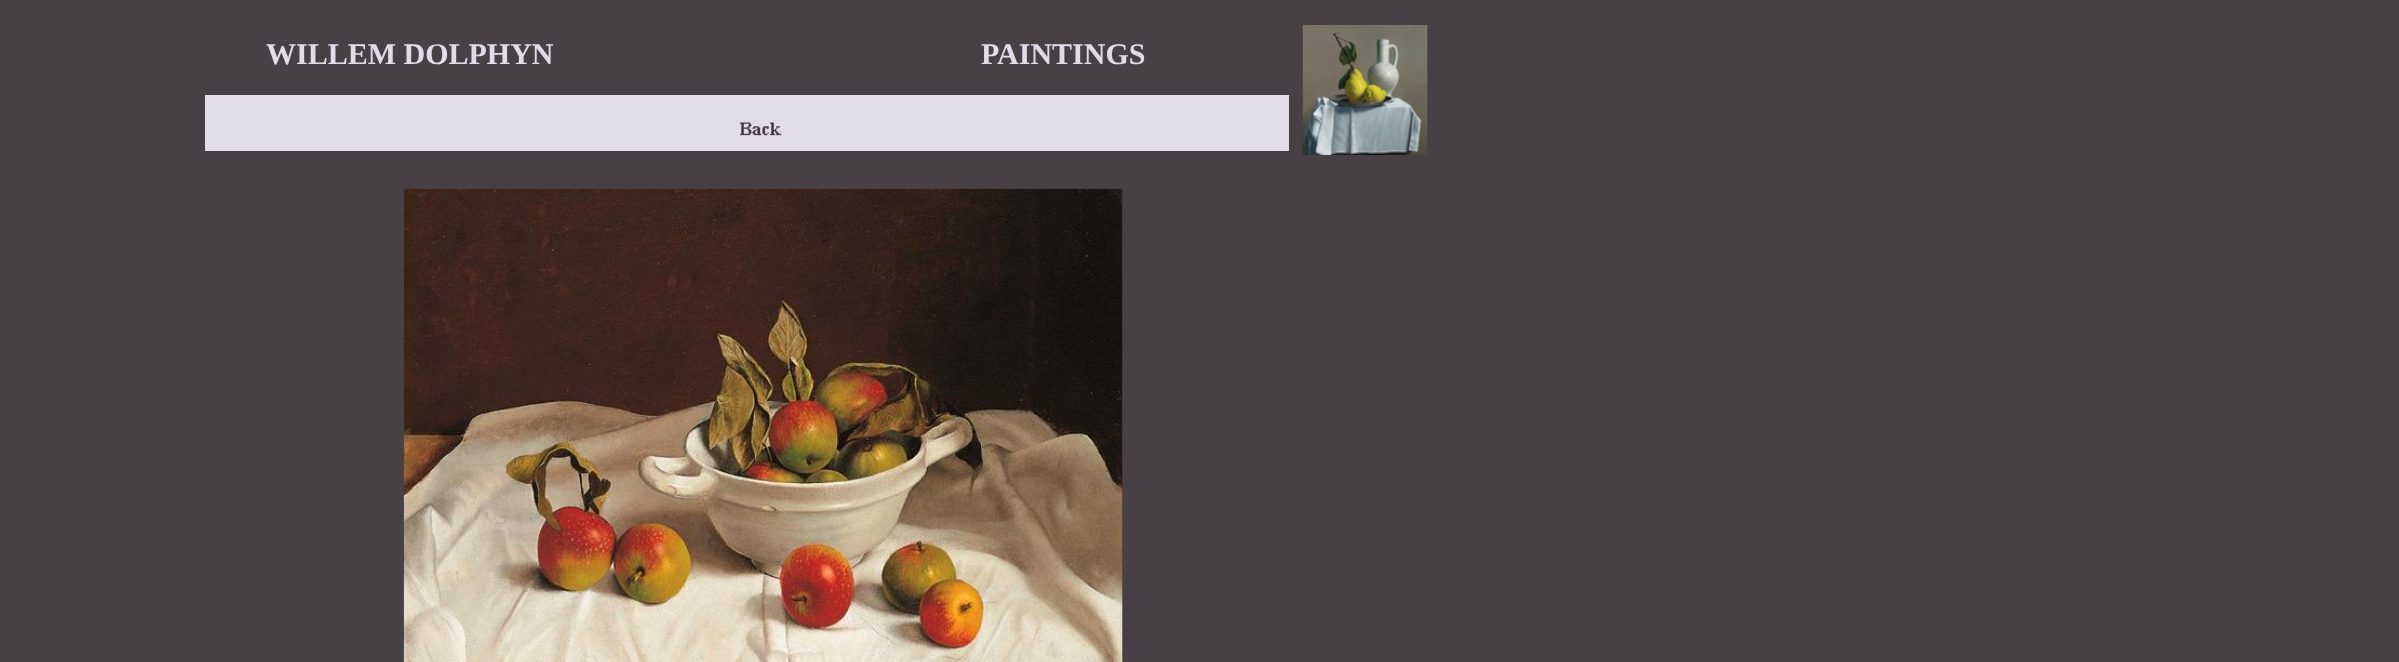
<!DOCTYPE html>
<meta charset="utf-8">
<style>body { margin: 0 } canvas { display: block }</style>
<canvas id="canvas" width="2399" height="662"></canvas>
<script type="module">
  const canvas = document.getElementById("canvas");
  const g = canvas.getContext("2d");
  g.miterLimit = 4;
  g.fontKerning = "normal";
  function drawText(s, x, y, [font, color]) {
    g.font = font;
    g.fillStyle = color;
    g.fillText(s, x, y);
  }
  function fillBox(x, y, w, h, color) {
    g.fillStyle = color;
    g.fillRect(x, y, w, h);
  }
  async function drawPicture(src, x, y, w, h) {
    const img = new Image();
    img.src = src;
    await img.decode();
    g.drawImage(img, x, y, w, h);
  }

  const s1 = ["bold 30px Liberation Serif", "#E1DDE8"];

  fillBox(0, 0, 2399, 662, "#474146");
  drawText("WILLEM DOLPHYN", 266, 64, s1);
  drawText("PAINTINGS", 981, 64, s1);
  await drawPicture("pic1.png", 1302, 25, 126, 130);
  fillBox(205, 95, 1084, 56, "#E1DDE8");
  await drawPicture("pic2.png", 739, 122, 43, 14);
  await drawPicture("pic3.png", 403, 188, 720, 474);
</script>
